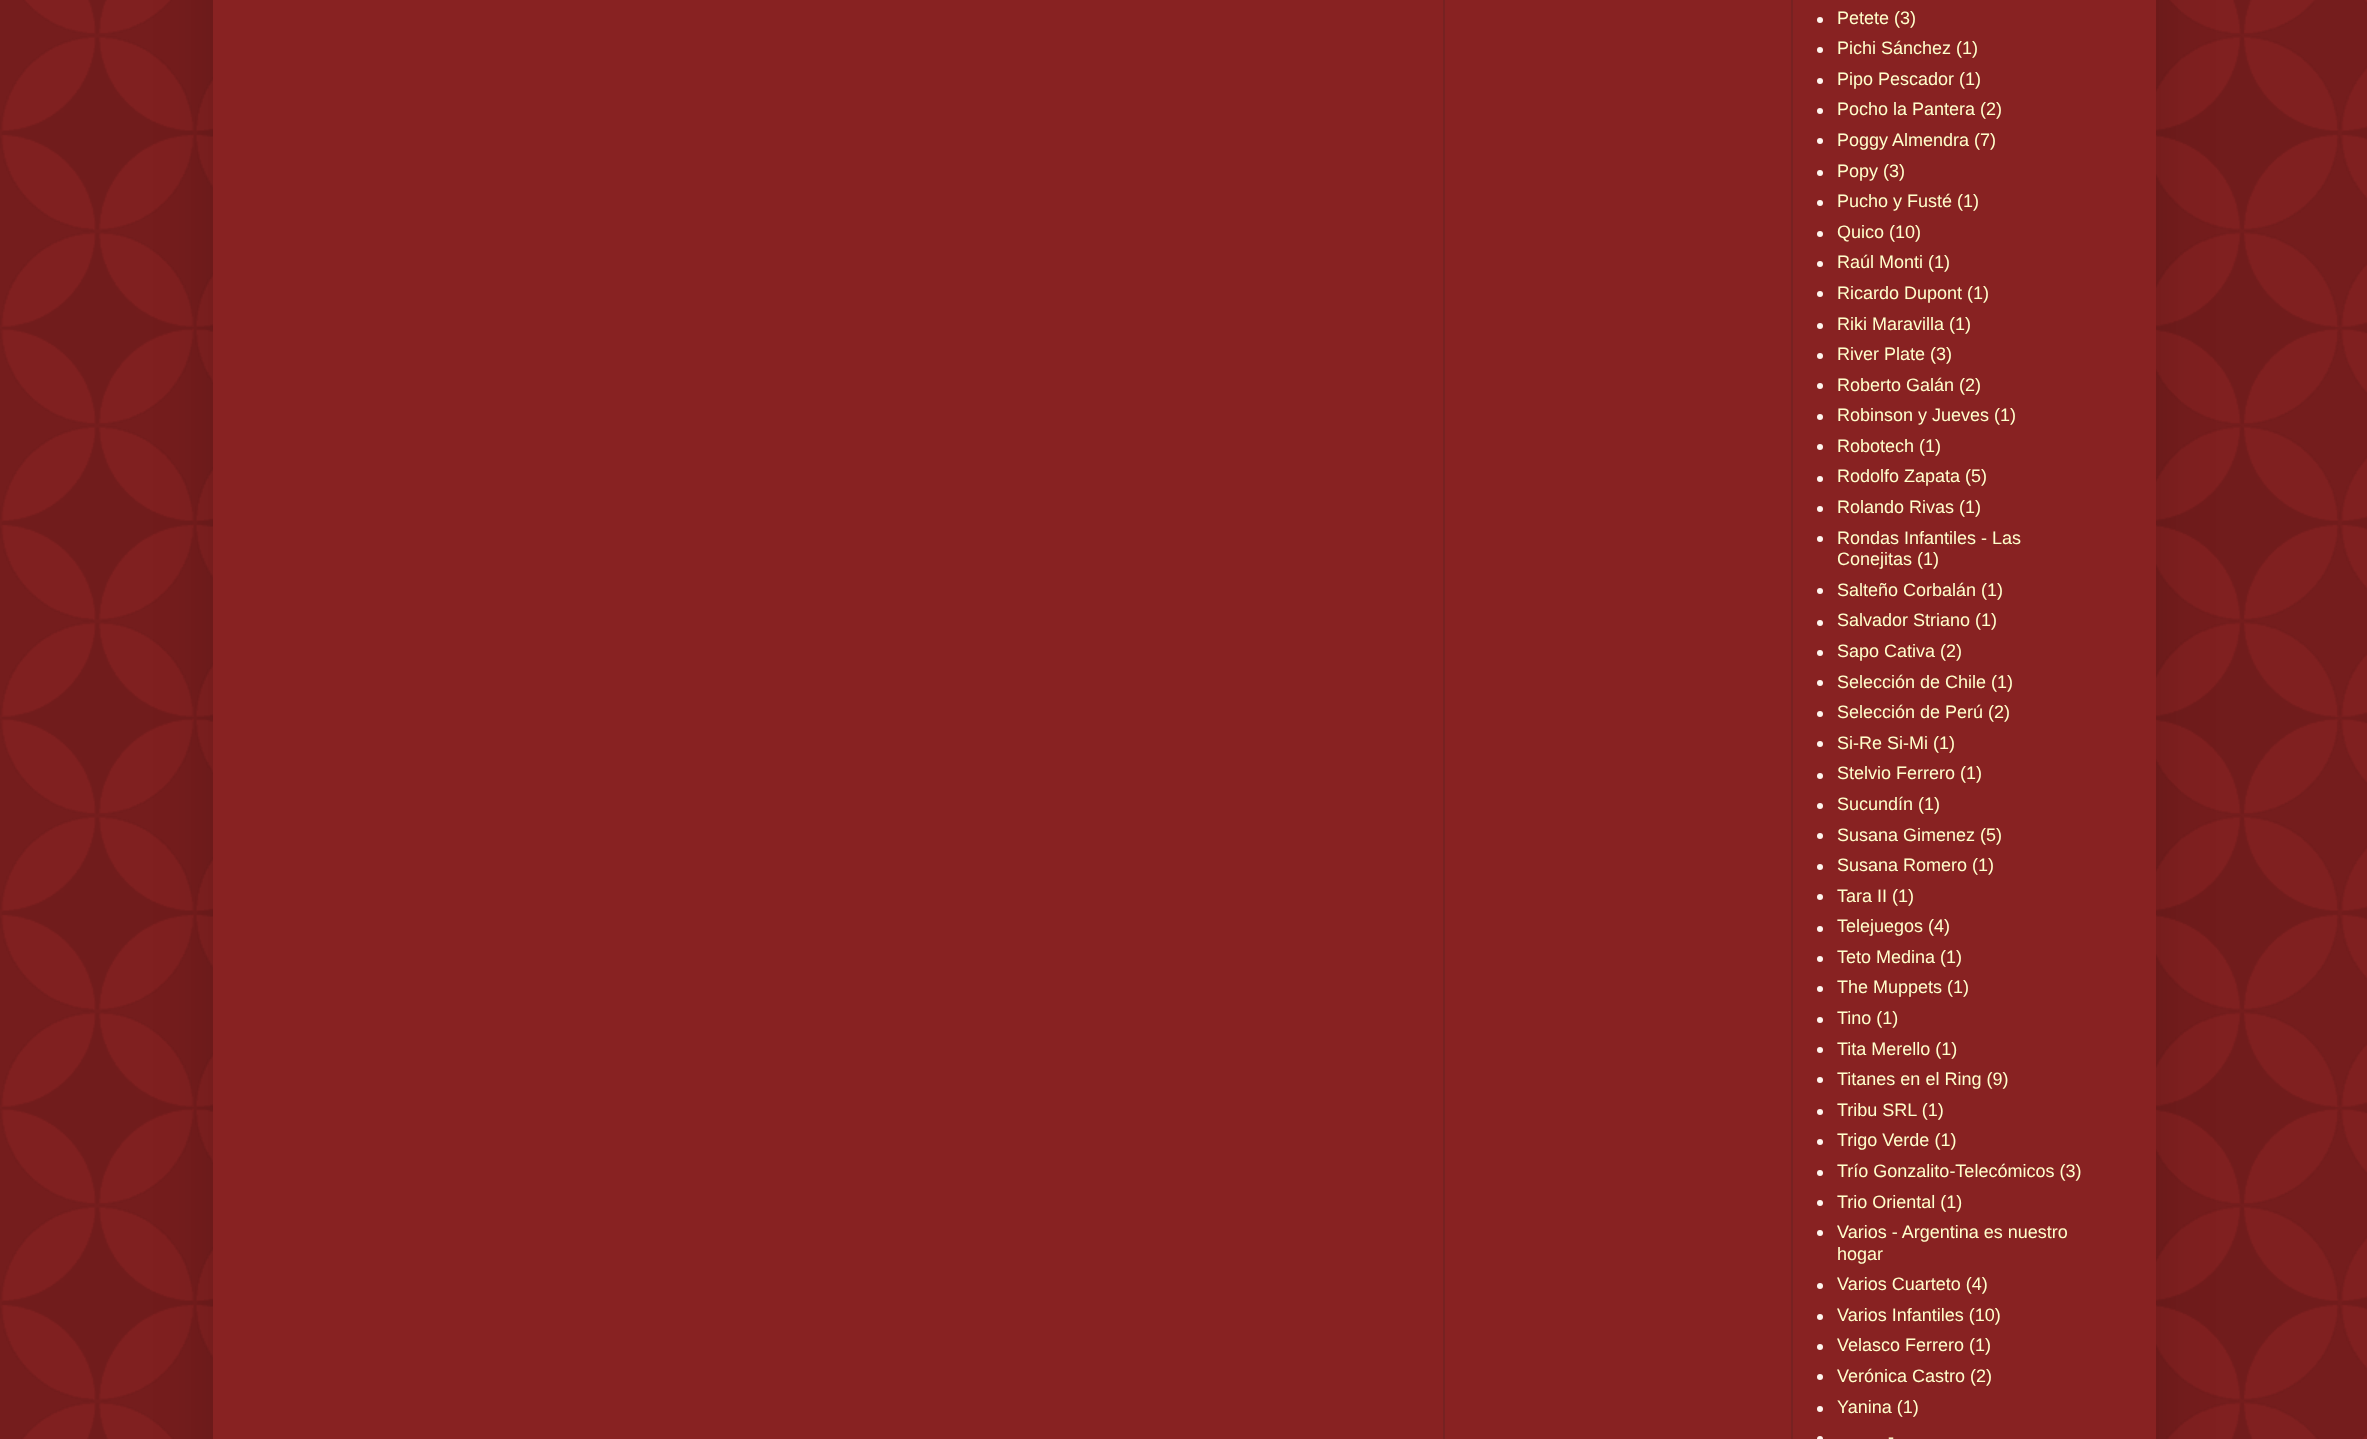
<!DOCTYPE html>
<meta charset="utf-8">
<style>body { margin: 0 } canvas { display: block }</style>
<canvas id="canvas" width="2367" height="1439"></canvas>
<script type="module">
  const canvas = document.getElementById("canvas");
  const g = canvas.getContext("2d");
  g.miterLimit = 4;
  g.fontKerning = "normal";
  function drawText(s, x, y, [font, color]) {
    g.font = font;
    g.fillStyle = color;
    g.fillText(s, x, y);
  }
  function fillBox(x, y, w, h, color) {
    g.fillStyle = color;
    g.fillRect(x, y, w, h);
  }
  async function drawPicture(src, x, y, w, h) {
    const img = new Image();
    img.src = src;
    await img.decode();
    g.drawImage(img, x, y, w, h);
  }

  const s1 = ["18px Liberation Sans", "#FFFFCC"];

  fillBox(0, 0, 2367, 1439, "#882222");
  await drawPicture("pic1.png", 0, 0, 2367, 1439);
  g.fillStyle = "rgba(0, 0, 0, 0.15)";
  g.filter = "blur(30px)";
  g.beginPath();
  g.rect(213, -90, 1943, 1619);
  g.fill();
  g.filter = "none";
  fillBox(213, 0, 1943, 1439, "#882222");
  fillBox(1443, 0, 2, 1439, "#772222");
  fillBox(1791, 0, 2, 1439, "#772222");
  g.fillStyle = "#FFF5EE";
  g.beginPath();
  g.arc(1820, 20, 3, 0, Math.PI * 2);
  g.fill();
  drawText("Petete (3)", 1837, 24, s1);
  g.fillStyle = "#FFF5EE";
  g.beginPath();
  g.arc(1820, 50, 3, 0, Math.PI * 2);
  g.fill();
  drawText("Pichi Sánchez (1)", 1837, 54, s1);
  g.fillStyle = "#FFF5EE";
  g.beginPath();
  g.arc(1820, 81, 3, 0, Math.PI * 2);
  g.fill();
  drawText("Pipo Pescador (1)", 1837, 85, s1);
  g.fillStyle = "#FFF5EE";
  g.beginPath();
  g.arc(1820, 111, 3, 0, Math.PI * 2);
  g.fill();
  drawText("Pocho la Pantera (2)", 1837, 115, s1);
  g.fillStyle = "#FFF5EE";
  g.beginPath();
  g.arc(1820, 141, 3, 0, Math.PI * 2);
  g.fill();
  drawText("Poggy Almendra (7)", 1837, 146, s1);
  g.fillStyle = "#FFF5EE";
  g.beginPath();
  g.arc(1820, 173, 3, 0, Math.PI * 2);
  g.fill();
  drawText("Popy (3)", 1837, 177, s1);
  g.fillStyle = "#FFF5EE";
  g.beginPath();
  g.arc(1820, 203, 3, 0, Math.PI * 2);
  g.fill();
  drawText("Pucho y Fusté (1)", 1837, 207, s1);
  g.fillStyle = "#FFF5EE";
  g.beginPath();
  g.arc(1820, 234, 3, 0, Math.PI * 2);
  g.fill();
  drawText("Quico (10)", 1837, 238, s1);
  g.fillStyle = "#FFF5EE";
  g.beginPath();
  g.arc(1820, 264, 3, 0, Math.PI * 2);
  g.fill();
  drawText("Raúl Monti (1)", 1837, 268, s1);
  g.fillStyle = "#FFF5EE";
  g.beginPath();
  g.arc(1820, 294, 3, 0, Math.PI * 2);
  g.fill();
  drawText("Ricardo Dupont (1)", 1837, 299, s1);
  g.fillStyle = "#FFF5EE";
  g.beginPath();
  g.arc(1820, 326, 3, 0, Math.PI * 2);
  g.fill();
  drawText("Riki Maravilla (1)", 1837, 330, s1);
  g.fillStyle = "#FFF5EE";
  g.beginPath();
  g.arc(1820, 356, 3, 0, Math.PI * 2);
  g.fill();
  drawText("River Plate (3)", 1837, 360, s1);
  g.fillStyle = "#FFF5EE";
  g.beginPath();
  g.arc(1820, 386, 3, 0, Math.PI * 2);
  g.fill();
  drawText("Roberto Galán (2)", 1837, 391, s1);
  g.fillStyle = "#FFF5EE";
  g.beginPath();
  g.arc(1820, 417, 3, 0, Math.PI * 2);
  g.fill();
  drawText("Robinson y Jueves (1)", 1837, 421, s1);
  g.fillStyle = "#FFF5EE";
  g.beginPath();
  g.arc(1820, 447, 3, 0, Math.PI * 2);
  g.fill();
  drawText("Robotech (1)", 1837, 452, s1);
  g.fillStyle = "#FFF5EE";
  g.beginPath();
  g.arc(1820, 479, 3, 0, Math.PI * 2);
  g.fill();
  drawText("Rodolfo Zapata (5)", 1837, 482, s1);
  g.fillStyle = "#FFF5EE";
  g.beginPath();
  g.arc(1820, 509, 3, 0, Math.PI * 2);
  g.fill();
  drawText("Rolando Rivas (1)", 1837, 513, s1);
  g.fillStyle = "#FFF5EE";
  g.beginPath();
  g.arc(1820, 539, 3, 0, Math.PI * 2);
  g.fill();
  drawText("Rondas Infantiles - Las", 1837, 544, s1);
  drawText("Conejitas (1)", 1837, 565, s1);
  g.fillStyle = "#FFF5EE";
  g.beginPath();
  g.arc(1820, 591, 3, 0, Math.PI * 2);
  g.fill();
  drawText("Salteño Corbalán (1)", 1837, 596, s1);
  g.fillStyle = "#FFF5EE";
  g.beginPath();
  g.arc(1820, 623, 3, 0, Math.PI * 2);
  g.fill();
  drawText("Salvador Striano (1)", 1837, 626, s1);
  g.fillStyle = "#FFF5EE";
  g.beginPath();
  g.arc(1820, 653, 3, 0, Math.PI * 2);
  g.fill();
  drawText("Sapo Cativa (2)", 1837, 657, s1);
  g.fillStyle = "#FFF5EE";
  g.beginPath();
  g.arc(1820, 683, 3, 0, Math.PI * 2);
  g.fill();
  drawText("Selección de Chile (1)", 1837, 688, s1);
  g.fillStyle = "#FFF5EE";
  g.beginPath();
  g.arc(1820, 714, 3, 0, Math.PI * 2);
  g.fill();
  drawText("Selección de Perú (2)", 1837, 718, s1);
  g.fillStyle = "#FFF5EE";
  g.beginPath();
  g.arc(1820, 744, 3, 0, Math.PI * 2);
  g.fill();
  drawText("Si-Re Si-Mi (1)", 1837, 749, s1);
  g.fillStyle = "#FFF5EE";
  g.beginPath();
  g.arc(1820, 776, 3, 0, Math.PI * 2);
  g.fill();
  drawText("Stelvio Ferrero (1)", 1837, 779, s1);
  g.fillStyle = "#FFF5EE";
  g.beginPath();
  g.arc(1820, 806, 3, 0, Math.PI * 2);
  g.fill();
  drawText("Sucundín (1)", 1837, 810, s1);
  g.fillStyle = "#FFF5EE";
  g.beginPath();
  g.arc(1820, 836, 3, 0, Math.PI * 2);
  g.fill();
  drawText("Susana Gimenez (5)", 1837, 841, s1);
  g.fillStyle = "#FFF5EE";
  g.beginPath();
  g.arc(1820, 867, 3, 0, Math.PI * 2);
  g.fill();
  drawText("Susana Romero (1)", 1837, 871, s1);
  g.fillStyle = "#FFF5EE";
  g.beginPath();
  g.arc(1820, 897, 3, 0, Math.PI * 2);
  g.fill();
  drawText("Tara II (1)", 1837, 902, s1);
  g.fillStyle = "#FFF5EE";
  g.beginPath();
  g.arc(1820, 929, 3, 0, Math.PI * 2);
  g.fill();
  drawText("Telejuegos (4)", 1837, 932, s1);
  g.fillStyle = "#FFF5EE";
  g.beginPath();
  g.arc(1820, 959, 3, 0, Math.PI * 2);
  g.fill();
  drawText("Teto Medina (1)", 1837, 963, s1);
  g.fillStyle = "#FFF5EE";
  g.beginPath();
  g.arc(1820, 989, 3, 0, Math.PI * 2);
  g.fill();
  drawText("The Muppets (1)", 1837, 993, s1);
  g.fillStyle = "#FFF5EE";
  g.beginPath();
  g.arc(1820, 1020, 3, 0, Math.PI * 2);
  g.fill();
  drawText("Tino (1)", 1837, 1024, s1);
  g.fillStyle = "#FFF5EE";
  g.beginPath();
  g.arc(1820, 1050, 3, 0, Math.PI * 2);
  g.fill();
  drawText("Tita Merello (1)", 1837, 1055, s1);
  g.fillStyle = "#FFF5EE";
  g.beginPath();
  g.arc(1820, 1080, 3, 0, Math.PI * 2);
  g.fill();
  drawText("Titanes en el Ring (9)", 1837, 1085, s1);
  g.fillStyle = "#FFF5EE";
  g.beginPath();
  g.arc(1820, 1112, 3, 0, Math.PI * 2);
  g.fill();
  drawText("Tribu SRL (1)", 1837, 1116, s1);
  g.fillStyle = "#FFF5EE";
  g.beginPath();
  g.arc(1820, 1142, 3, 0, Math.PI * 2);
  g.fill();
  drawText("Trigo Verde (1)", 1837, 1146, s1);
  g.fillStyle = "#FFF5EE";
  g.beginPath();
  g.arc(1820, 1173, 3, 0, Math.PI * 2);
  g.fill();
  drawText("Trío Gonzalito-Telecómicos (3)", 1837, 1177, s1);
  g.fillStyle = "#FFF5EE";
  g.beginPath();
  g.arc(1820, 1203, 3, 0, Math.PI * 2);
  g.fill();
  drawText("Trio Oriental (1)", 1837, 1208, s1);
  g.fillStyle = "#FFF5EE";
  g.beginPath();
  g.arc(1820, 1233, 3, 0, Math.PI * 2);
  g.fill();
  drawText("Varios - Argentina es nuestro", 1837, 1238, s1);
  drawText("hogar", 1837, 1260, s1);
  g.fillStyle = "#FFF5EE";
  g.beginPath();
  g.arc(1820, 1286, 3, 0, Math.PI * 2);
  g.fill();
  drawText("Varios Cuarteto (4)", 1837, 1290, s1);
  g.fillStyle = "#FFF5EE";
  g.beginPath();
  g.arc(1820, 1317, 3, 0, Math.PI * 2);
  g.fill();
  drawText("Varios Infantiles (10)", 1837, 1321, s1);
  g.fillStyle = "#FFF5EE";
  g.beginPath();
  g.arc(1820, 1347, 3, 0, Math.PI * 2);
  g.fill();
  drawText("Velasco Ferrero (1)", 1837, 1351, s1);
  g.fillStyle = "#FFF5EE";
  g.beginPath();
  g.arc(1820, 1377, 3, 0, Math.PI * 2);
  g.fill();
  drawText("Verónica Castro (2)", 1837, 1382, s1);
  g.fillStyle = "#FFF5EE";
  g.beginPath();
  g.arc(1820, 1409, 3, 0, Math.PI * 2);
  g.fill();
  drawText("Yanina (1)", 1837, 1413, s1);
  g.fillStyle = "#FFF5EE";
  g.beginPath();
  g.arc(1820, 1439, 3, 0, Math.PI * 2);
  g.fill();
  drawText("-", 1888, 1443, s1);
</script>
